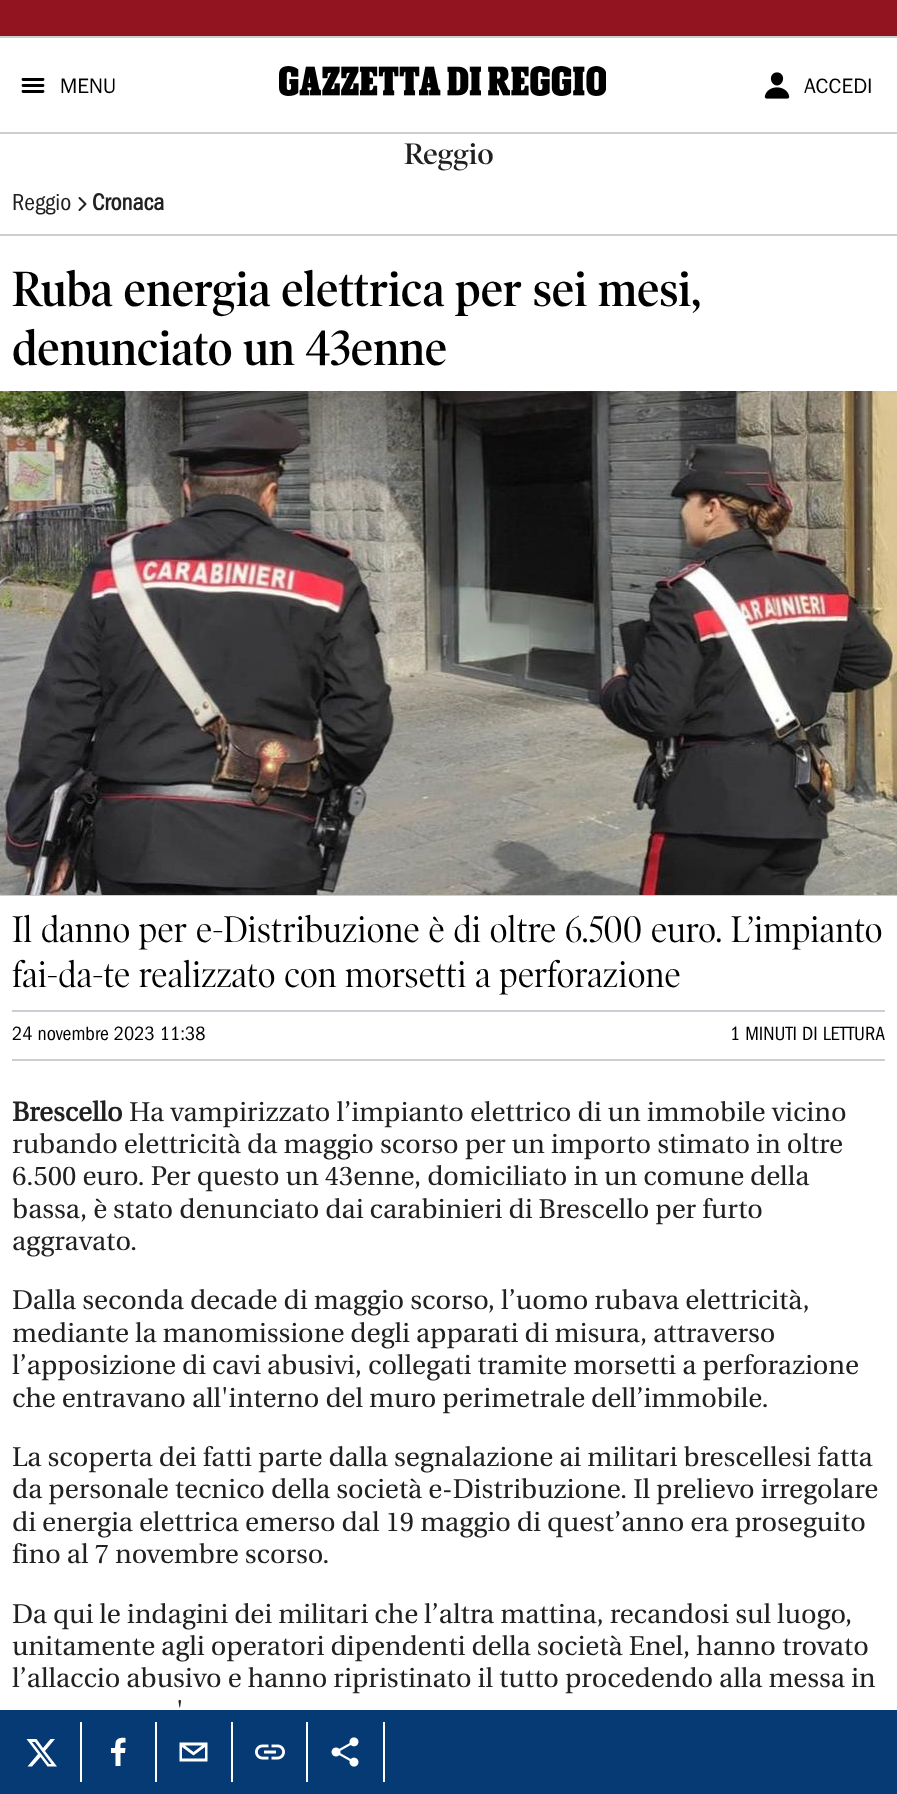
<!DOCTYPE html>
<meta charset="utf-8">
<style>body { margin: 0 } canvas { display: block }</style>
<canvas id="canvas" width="897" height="1794"></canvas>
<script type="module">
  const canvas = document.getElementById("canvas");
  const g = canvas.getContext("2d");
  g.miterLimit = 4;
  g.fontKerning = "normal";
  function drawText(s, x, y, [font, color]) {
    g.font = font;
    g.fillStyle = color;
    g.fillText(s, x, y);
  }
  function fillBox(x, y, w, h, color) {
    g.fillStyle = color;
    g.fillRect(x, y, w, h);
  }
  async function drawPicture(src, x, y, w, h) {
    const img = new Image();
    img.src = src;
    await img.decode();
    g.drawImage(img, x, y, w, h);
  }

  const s1 = ["21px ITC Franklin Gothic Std", "#000000"];
  const s2 = ["600 30px 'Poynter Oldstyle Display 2'", "#212121"];
  const s3 = ["24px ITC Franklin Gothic", "#212121"];
  const s4 = ["bold 24px ITC Franklin Gothic", "#212121"];
  const s5 = ["600 50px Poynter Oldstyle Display", "#000000"];
  const s6 = ["37.5px Poynter Oldstyle Display", "#000000"];
  const s7 = ["20px ITC Franklin Gothic", "#000000"];
  const s8 = ["bold 27px Utopia", "#212121"];
  const s9 = ["27px Utopia", "#212121"];

  fillBox(0, 0, 897, 1794, "#FFFFFF");
  fillBox(0, 0, 897, 36, "#921421");
  fillBox(0, 36, 897, 2, "#CBCFD3");
  fillBox(0, 132, 897, 2, "#CBCFD3");
  g.beginPath();
  g.moveTo(23, 79.5);
  g.lineTo(43, 79.5);
  g.moveTo(23, 85.5);
  g.lineTo(43, 85.5);
  g.moveTo(23, 91.5);
  g.lineTo(43, 91.5);
  g.strokeStyle = "#000000";
  g.lineWidth = 2.8;
  g.lineCap = "round";
  g.stroke();
  drawText("MENU", 60, 93, s1);
  await drawPicture("pic1.png", 279, 66, 327, 30);
  await drawPicture("pic2.png", 764, 72, 26, 27);
  drawText("ACCEDI", 804, 93, s1);
  drawText("Reggio", 404, 164, s2);
  fillBox(0, 234, 897, 2, "#CBCFD3");
  drawText("Reggio", 12, 210, s3);
  g.beginPath();
  g.moveTo(79.5, 198);
  g.lineTo(85.5, 204);
  g.lineTo(79.5, 210);
  g.strokeStyle = "#212121";
  g.lineWidth = 2;
  g.lineJoin = "round";
  g.stroke();
  drawText("Cronaca", 92, 210, s4);
  drawText("Ruba energia elettrica per sei mesi,", 12, 306, s5);
  drawText("denunciato un 43enne", 12, 365, s5);
  fillBox(0, 895, 897, 1, "#CBCFD3");
  await drawPicture("pic3.png", 0, 391, 897, 504);
  drawText("Il danno per e-Distribuzione è di oltre 6.500 euro. L’impianto", 12, 942, s6);
  drawText("fai-da-te realizzato con morsetti a perforazione", 12, 987, s6);
  fillBox(12, 1010, 873, 2, "#CBCFD3");
  fillBox(12, 1059, 873, 2, "#CBCFD3");
  drawText("24 novembre 2023 11:38", 12, 1040, s7);
  drawText("1 MINUTI DI LETTURA", 730, 1040, s7);
  drawText("Brescello", 12, 1121, s8);
  drawText("Ha vampirizzato l’impianto elettrico di un immobile vicino", 129, 1121, s9);
  drawText("rubando elettricità da maggio scorso per un importo stimato in oltre", 12, 1153, s9);
  drawText("6.500 euro. Per questo un 43enne, domiciliato in un comune della", 12, 1185, s9);
  drawText("bassa, è stato denunciato dai carabinieri di Brescello per furto", 12, 1218, s9);
  drawText("aggravato.", 12, 1250, s9);
  drawText("Dalla seconda decade di maggio scorso, l’uomo rubava elettricità,", 12, 1309, s9);
  drawText("mediante la manomissione degli apparati di misura, attraverso", 12, 1342, s9);
  drawText("l’apposizione di cavi abusivi, collegati tramite morsetti a perforazione", 12, 1374, s9);
  drawText("che entravano all'interno del muro perimetrale dell’immobile.", 12, 1407, s9);
  drawText("La scoperta dei fatti parte dalla segnalazione ai militari brescellesi fatta", 12, 1466, s9);
  drawText("da personale tecnico della società e-Distribuzione. Il prelievo irregolare", 12, 1498, s9);
  drawText("di energia elettrica emerso dal 19 maggio di quest’anno era proseguito", 12, 1531, s9);
  drawText("fino al 7 novembre scorso.", 12, 1563, s9);
  drawText("Da qui le indagini dei militari che l’altra mattina, recandosi sul luogo,", 12, 1623, s9);
  drawText("unitamente agli operatori dipendenti della società Enel, hanno trovato", 12, 1655, s9);
  drawText("l’allaccio abusivo e hanno ripristinato il tutto procedendo alla messa in", 12, 1687, s9);
  drawText("'", 176, 1720, s9);
  fillBox(0, 1710, 897, 84, "#063A74");
  g.fillStyle = "#FFFFFF";
  g.beginPath();
  g.moveTo(50.5, 1739);
  g.lineTo(55, 1739);
  g.lineTo(45, 1751);
  g.lineTo(57, 1766.5);
  g.lineTo(47.5, 1766.5);
  g.lineTo(40.5, 1757);
  g.lineTo(32, 1766.5);
  g.lineTo(27.5, 1766.5);
  g.lineTo(38, 1754);
  g.lineTo(26.5, 1739);
  g.lineTo(36.5, 1739);
  g.lineTo(43, 1748);
  g.closePath();
  g.moveTo(49, 1764);
  g.lineTo(51.5, 1764);
  g.lineTo(35, 1742);
  g.lineTo(32, 1742);
  g.closePath();
  g.fill();
  fillBox(80, 1722, 2, 60, "#FFFFFF");
  g.beginPath();
  g.moveTo(120.5, 1766);
  g.lineTo(120.5, 1753);
  g.lineTo(125, 1753);
  g.lineTo(125.5, 1748);
  g.lineTo(120.5, 1748);
  g.bezierCurveTo(120.5, 1743, 120, 1742.5, 125.5, 1742.5);
  g.lineTo(125.5, 1738);
  g.bezierCurveTo(121.5, 1737.5, 116, 1738, 115.5, 1743);
  g.lineTo(115, 1748);
  g.lineTo(111, 1748);
  g.lineTo(111, 1753);
  g.lineTo(115.5, 1753);
  g.lineTo(115.5, 1766);
  g.closePath();
  g.fill();
  fillBox(155, 1722, 2, 60, "#FFFFFF");
  g.beginPath();
  g.moveTo(179.5, 1742.5);
  g.lineTo(179.5, 1761.5);
  g.lineTo(207.5, 1761.5);
  g.lineTo(207.5, 1742.5);
  g.closePath();
  g.moveTo(202, 1745.5);
  g.lineTo(193.5, 1752);
  g.lineTo(185, 1745.5);
  g.closePath();
  g.moveTo(182, 1758.5);
  g.lineTo(182, 1747);
  g.lineTo(193.5, 1755.5);
  g.lineTo(205, 1747);
  g.lineTo(205, 1758.5);
  g.closePath();
  g.fill();
  fillBox(231, 1722, 2, 60, "#FFFFFF");
  await drawPicture("pic4.png", 255, 1744, 30, 16);
  fillBox(306, 1722, 2, 60, "#FFFFFF");
  await drawPicture("pic5.png", 331, 1737, 28, 30);
  fillBox(383, 1722, 2, 60, "#FFFFFF");
</script>
